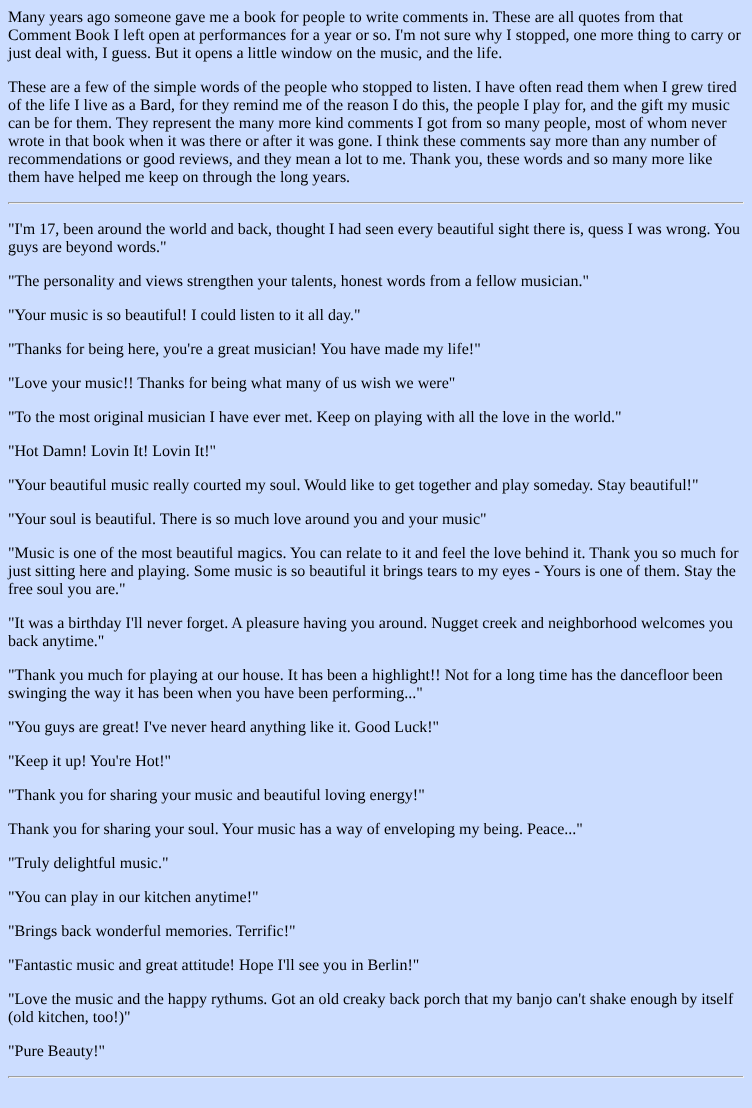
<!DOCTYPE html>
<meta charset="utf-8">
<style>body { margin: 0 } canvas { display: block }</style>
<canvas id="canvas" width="752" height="1108"></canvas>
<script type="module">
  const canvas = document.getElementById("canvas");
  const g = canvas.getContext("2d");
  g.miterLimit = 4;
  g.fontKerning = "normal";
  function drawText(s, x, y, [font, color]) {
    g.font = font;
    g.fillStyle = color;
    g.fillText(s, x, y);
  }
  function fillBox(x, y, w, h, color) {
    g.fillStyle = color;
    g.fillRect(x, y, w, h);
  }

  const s1 = ["16px Liberation Serif", "#000000"];

  fillBox(0, 0, 752, 1108, "#CCDDFF");
  drawText("Many years ago someone gave me a book for people to write comments in. These are all quotes from that", 8, 22, s1);
  drawText("Comment Book I left open at performances for a year or so. I'm not sure why I stopped, one more thing to carry or", 8, 40, s1);
  drawText("just deal with, I guess. But it opens a little window on the music, and the life.", 8, 58, s1);
  drawText("These are a few of the simple words of the people who stopped to listen. I have often read them when I grew tired", 8, 92, s1);
  drawText("of the life I live as a Bard, for they remind me of the reason I do this, the people I play for, and the gift my music", 8, 110, s1);
  drawText("can be for them. They represent the many more kind comments I got from so many people, most of whom never", 8, 128, s1);
  drawText("wrote in that book when it was there or after it was gone. I think these comments say more than any number of", 8, 146, s1);
  drawText("recommendations or good reviews, and they mean a lot to me. Thank you, these words and so many more like", 8, 164, s1);
  drawText("them have helped me keep on through the long years.", 8, 182, s1);
  fillBox(8, 202, 736, 1, "#9F9F9F");
  fillBox(743, 202, 1, 2, "#EEEEEE");
  fillBox(8, 203, 736, 1, "#EEEEEE");
  fillBox(8, 202, 1, 2, "#9F9F9F");
  drawText("\"I'm 17, been around the world and back, thought I had seen every beautiful sight there is, quess I was wrong. You", 8, 234, s1);
  drawText("guys are beyond words.\"", 8, 252, s1);
  drawText("\"The personality and views strengthen your talents, honest words from a fellow musician.\"", 8, 286, s1);
  drawText("\"Your music is so beautiful! I could listen to it all day.\"", 8, 320, s1);
  drawText("\"Thanks for being here, you're a great musician! You have made my life!\"", 8, 354, s1);
  drawText("\"Love your music!! Thanks for being what many of us wish we were\"", 8, 388, s1);
  drawText("\"To the most original musician I have ever met. Keep on playing with all the love in the world.\"", 8, 422, s1);
  drawText("\"Hot Damn! Lovin It! Lovin It!\"", 8, 456, s1);
  drawText("\"Your beautiful music really courted my soul. Would like to get together and play someday. Stay beautiful!\"", 8, 490, s1);
  drawText("\"Your soul is beautiful. There is so much love around you and your music\"", 8, 524, s1);
  drawText("\"Music is one of the most beautiful magics. You can relate to it and feel the love behind it. Thank you so much for", 8, 558, s1);
  drawText("just sitting here and playing. Some music is so beautiful it brings tears to my eyes - Yours is one of them. Stay the", 8, 576, s1);
  drawText("free soul you are.\"", 8, 594, s1);
  drawText("\"It was a birthday I'll never forget. A pleasure having you around. Nugget creek and neighborhood welcomes you", 8, 628, s1);
  drawText("back anytime.\"", 8, 646, s1);
  drawText("\"Thank you much for playing at our house. It has been a highlight!! Not for a long time has the dancefloor been", 8, 680, s1);
  drawText("swinging the way it has been when you have been performing...\"", 8, 698, s1);
  drawText("\"You guys are great! I've never heard anything like it. Good Luck!\"", 8, 732, s1);
  drawText("\"Keep it up! You're Hot!\"", 8, 766, s1);
  drawText("\"Thank you for sharing your music and beautiful loving energy!\"", 8, 800, s1);
  drawText("Thank you for sharing your soul. Your music has a way of enveloping my being. Peace...\"", 8, 834, s1);
  drawText("\"Truly delightful music.\"", 8, 868, s1);
  drawText("\"You can play in our kitchen anytime!\"", 8, 902, s1);
  drawText("\"Brings back wonderful memories. Terrific!\"", 8, 936, s1);
  drawText("\"Fantastic music and great attitude! Hope I'll see you in Berlin!\"", 8, 970, s1);
  drawText("\"Love the music and the happy rythums. Got an old creaky back porch that my banjo can't shake enough by itself", 8, 1004, s1);
  drawText("(old kitchen, too!)\"", 8, 1022, s1);
  drawText("\"Pure Beauty!\"", 8, 1056, s1);
  fillBox(8, 1076, 736, 1, "#9F9F9F");
  fillBox(743, 1076, 1, 2, "#EEEEEE");
  fillBox(8, 1077, 736, 1, "#EEEEEE");
  fillBox(8, 1076, 1, 2, "#9F9F9F");
</script>
